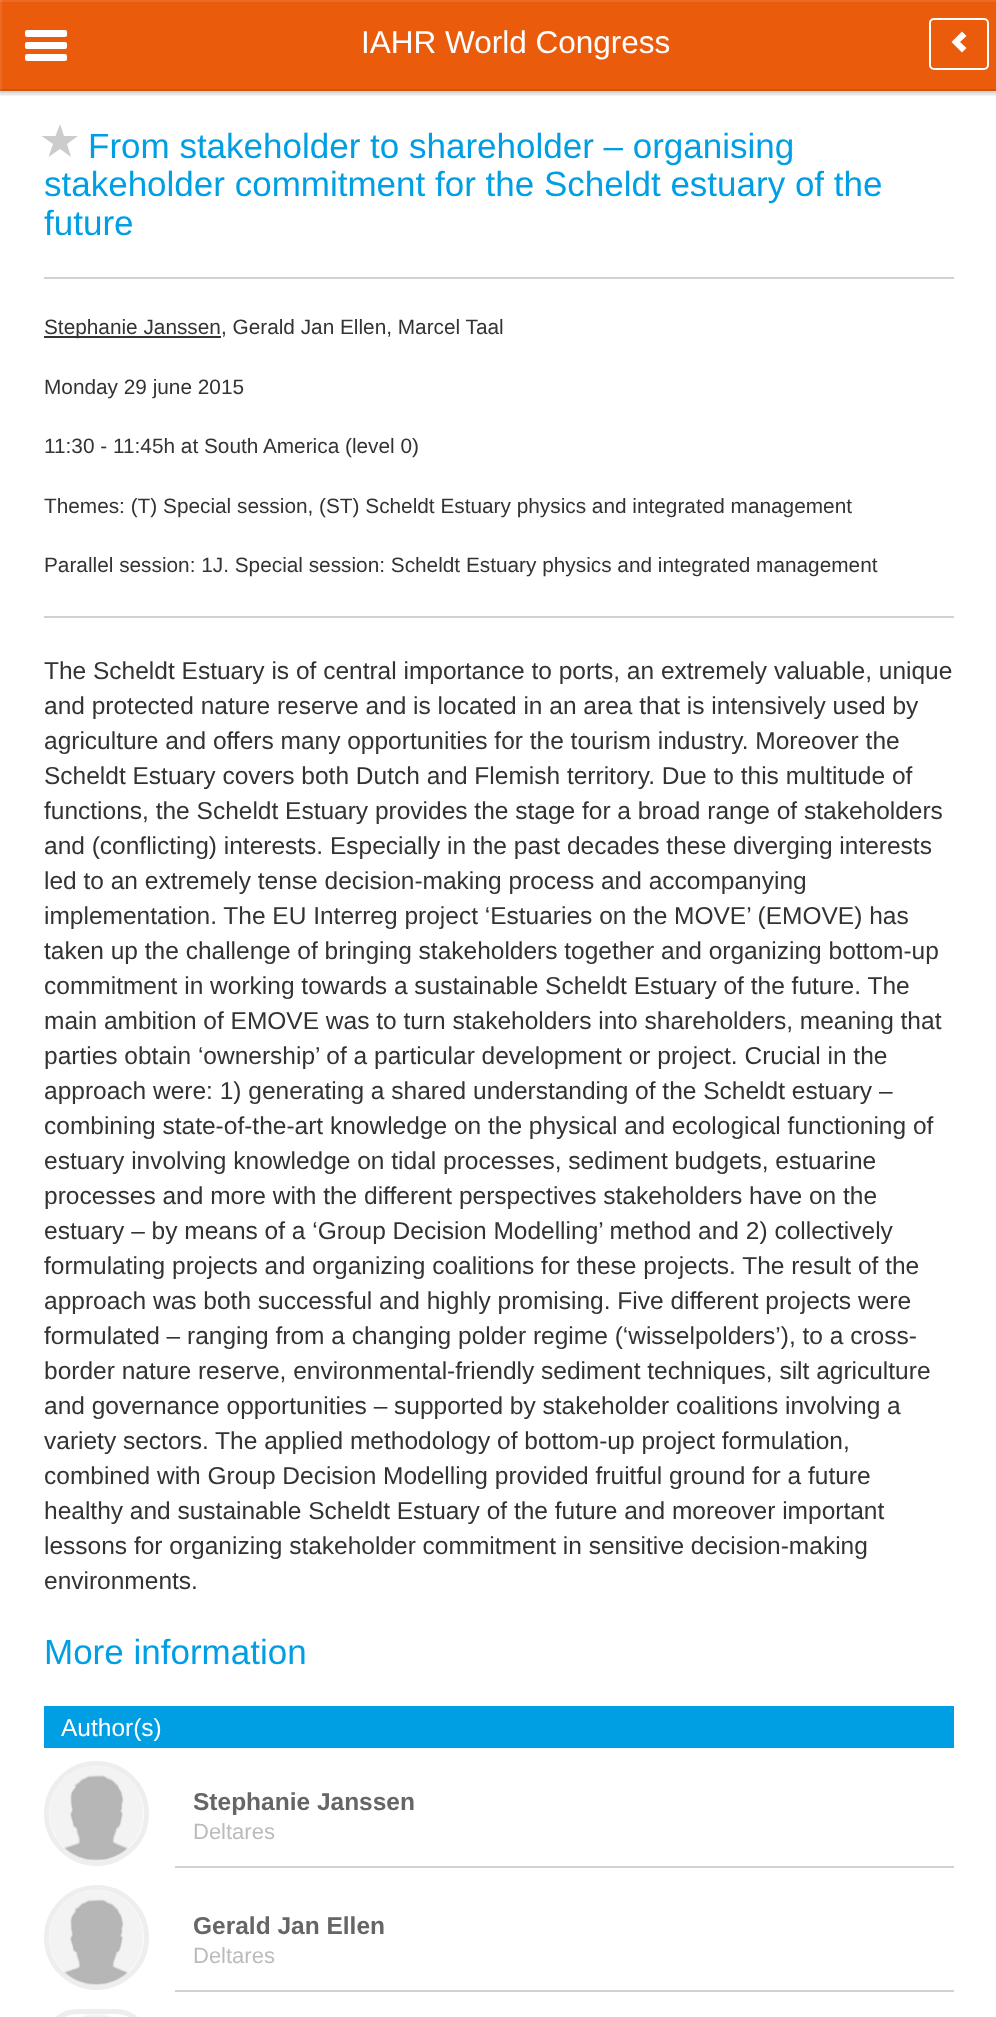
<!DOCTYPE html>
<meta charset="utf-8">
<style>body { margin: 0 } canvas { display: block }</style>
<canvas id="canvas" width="996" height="2017"></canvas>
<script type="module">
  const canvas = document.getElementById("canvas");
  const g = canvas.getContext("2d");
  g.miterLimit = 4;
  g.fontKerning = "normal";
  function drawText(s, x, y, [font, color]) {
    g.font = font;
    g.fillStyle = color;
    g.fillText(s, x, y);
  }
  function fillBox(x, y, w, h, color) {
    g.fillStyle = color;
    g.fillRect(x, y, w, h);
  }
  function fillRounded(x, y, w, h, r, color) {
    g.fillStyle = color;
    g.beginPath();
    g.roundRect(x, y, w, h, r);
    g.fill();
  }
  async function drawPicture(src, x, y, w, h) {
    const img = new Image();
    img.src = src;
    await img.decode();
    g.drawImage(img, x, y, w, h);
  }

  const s1 = ["31.5px Liberation Sans", "#FFFFFF"];
  const s2 = ["35px Liberation Sans", "#009FE3"];
  const s3 = ["20.8px Liberation Sans", "#333333"];
  const s4 = ["24.5px Liberation Sans", "#333333"];
  const s5 = ["24.5px Liberation Sans", "#FFFFFF"];
  const s6 = ["bold 24.5px Liberation Sans", "#666666"];
  const s7 = ["22px Liberation Sans", "#BBBBBB"];

  fillBox(0, 0, 996, 2017, "#FFFFFF");
  g.fillStyle = "#EBEBEB";
  g.beginPath();
  g.moveTo(0, 91);
  g.lineTo(0, 93);
  g.lineTo(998, 93);
  g.lineTo(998, 2);
  g.lineTo(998, 91);
  g.closePath();
  g.fill();
  g.fillStyle = "rgba(0, 0, 0, 0.06)";
  g.beginPath();
  g.moveTo(0, 91);
  g.lineTo(0, 95);
  g.lineTo(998, 95);
  g.lineTo(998, 4);
  g.lineTo(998, 91);
  g.closePath();
  g.fill();
  g.fillStyle = "rgba(0, 0, 0, 0.04)";
  g.beginPath();
  g.moveTo(0, 91);
  g.lineTo(0, 96);
  g.lineTo(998, 96);
  g.lineTo(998, 5);
  g.lineTo(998, 91);
  g.closePath();
  g.fill();
  fillBox(2, 2, 994, 87, "#EA5B0C");
  fillBox(0, 0, 996, 2, "#EC6B24");
  fillBox(0, 0, 2, 91, "#EC6B24");
  fillBox(0, 0, 2, 2, "#EE7A3A");
  fillBox(0, 89, 996, 2, "#D3520B");
  fillBox(0, 89, 2, 2, "#D76323");
  fillRounded(25, 30, 42, 7, 2, "#FFFFFF");
  fillRounded(25, 42, 42, 7, 2, "#FFFFFF");
  fillRounded(25, 54, 42, 7, 2, "#FFFFFF");
  drawText("IAHR World Congress", 361, 53, s1);
  g.beginPath();
  g.roundRect(930, 19, 58, 50, 4);
  g.strokeStyle = "#FFFFFF";
  g.lineWidth = 2;
  g.stroke();
  g.beginPath();
  g.moveTo(951.5, 42);
  g.lineTo(962, 52.5);
  g.lineTo(966.5, 48);
  g.lineTo(960, 42);
  g.lineTo(966.5, 36);
  g.lineTo(962, 31.5);
  g.closePath();
  g.fill();
  g.fillStyle = "#CCCCCC";
  g.beginPath();
  g.moveTo(41.5, 136);
  g.lineTo(55.5, 136);
  g.lineTo(60, 124);
  g.lineTo(64, 136);
  g.lineTo(78, 136);
  g.lineTo(67, 144);
  g.lineTo(71, 157);
  g.lineTo(60, 149);
  g.lineTo(48.5, 157);
  g.lineTo(53, 144);
  g.closePath();
  g.moveTo(48.5, 157);
  g.lineTo(48.5, 157);
  g.closePath();
  g.fill();
  drawText("From stakeholder to shareholder – organising", 88, 158, s2);
  drawText("stakeholder commitment for the Scheldt estuary of the", 44, 196, s2);
  drawText("future", 44, 235, s2);
  fillBox(44, 277, 910, 2, "#D1D1D1");
  fillBox(44, 336, 177, 2, "#333333");
  drawText("Stephanie Janssen, Gerald Jan Ellen, Marcel Taal", 44, 334, s3);
  drawText("Monday 29 june 2015", 44, 394, s3);
  drawText("11:30 - 11:45h at South America (level 0)", 44, 453, s3);
  drawText("Themes: (T) Special session, (ST) Scheldt Estuary physics and integrated management", 44, 513, s3);
  drawText("Parallel session: 1J. Special session: Scheldt Estuary physics and integrated management", 44, 572, s3);
  fillBox(44, 616, 910, 2, "#D1D1D1");
  drawText("The Scheldt Estuary is of central importance to ports, an extremely valuable, unique", 44, 679, s4);
  drawText("and protected nature reserve and is located in an area that is intensively used by", 44, 714, s4);
  drawText("agriculture and offers many opportunities for the tourism industry. Moreover the", 44, 749, s4);
  drawText("Scheldt Estuary covers both Dutch and Flemish territory. Due to this multitude of", 44, 784, s4);
  drawText("functions, the Scheldt Estuary provides the stage for a broad range of stakeholders", 44, 819, s4);
  drawText("and (conflicting) interests. Especially in the past decades these diverging interests", 44, 854, s4);
  drawText("led to an extremely tense decision-making process and accompanying", 44, 889, s4);
  drawText("implementation. The EU Interreg project ‘Estuaries on the MOVE’ (EMOVE) has", 44, 924, s4);
  drawText("taken up the challenge of bringing stakeholders together and organizing bottom-up", 44, 959, s4);
  drawText("commitment in working towards a sustainable Scheldt Estuary of the future. The", 44, 994, s4);
  drawText("main ambition of EMOVE was to turn stakeholders into shareholders, meaning that", 44, 1029, s4);
  drawText("parties obtain ‘ownership’ of a particular development or project. Crucial in the", 44, 1064, s4);
  drawText("approach were: 1) generating a shared understanding of the Scheldt estuary –", 44, 1099, s4);
  drawText("combining state-of-the-art knowledge on the physical and ecological functioning of", 44, 1134, s4);
  drawText("estuary involving knowledge on tidal processes, sediment budgets, estuarine", 44, 1169, s4);
  drawText("processes and more with the different perspectives stakeholders have on the", 44, 1204, s4);
  drawText("estuary – by means of a ‘Group Decision Modelling’ method and 2) collectively", 44, 1239, s4);
  drawText("formulating projects and organizing coalitions for these projects. The result of the", 44, 1274, s4);
  drawText("approach was both successful and highly promising. Five different projects were", 44, 1309, s4);
  drawText("formulated – ranging from a changing polder regime (‘wisselpolders’), to a cross-", 44, 1344, s4);
  drawText("border nature reserve, environmental-friendly sediment techniques, silt agriculture", 44, 1379, s4);
  drawText("and governance opportunities – supported by stakeholder coalitions involving a", 44, 1414, s4);
  drawText("variety sectors. The applied methodology of bottom-up project formulation,", 44, 1449, s4);
  drawText("combined with Group Decision Modelling provided fruitful ground for a future", 44, 1484, s4);
  drawText("healthy and sustainable Scheldt Estuary of the future and moreover important", 44, 1519, s4);
  drawText("lessons for organizing stakeholder commitment in sensitive decision-making", 44, 1554, s4);
  drawText("environments.", 44, 1589, s4);
  drawText("More information", 44, 1664, s2);
  fillBox(44, 1706, 910, 42, "#009FE3");
  drawText("Author(s)", 61, 1736, s5);
  g.beginPath();
  g.arc(96.5, 1813.5, 50, 0, Math.PI * 2);
  g.strokeStyle = "#EEEEEE";
  g.lineWidth = 5;
  g.stroke();
  await drawPicture("pic1.png", 49, 1766, 95, 95);
  drawText("Stephanie Janssen", 193, 1810, s6);
  drawText("Deltares", 193, 1839, s7);
  fillBox(175, 1866, 779, 2, "#D1D1D1");
  g.beginPath();
  g.arc(96.5, 1937.5, 50, 0, Math.PI * 2);
  g.stroke();
  await drawPicture("pic2.png", 49, 1890, 95, 95);
  drawText("Gerald Jan Ellen", 193, 1934, s6);
  drawText("Deltares", 193, 1963, s7);
  fillBox(175, 1990, 779, 2, "#D1D1D1");
  g.beginPath();
  g.roundRect(46.5, 2011.5, 100, 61, 50);
  g.stroke();
  await drawPicture("pic3.png", 82, 2014, 29, 3);
</script>
